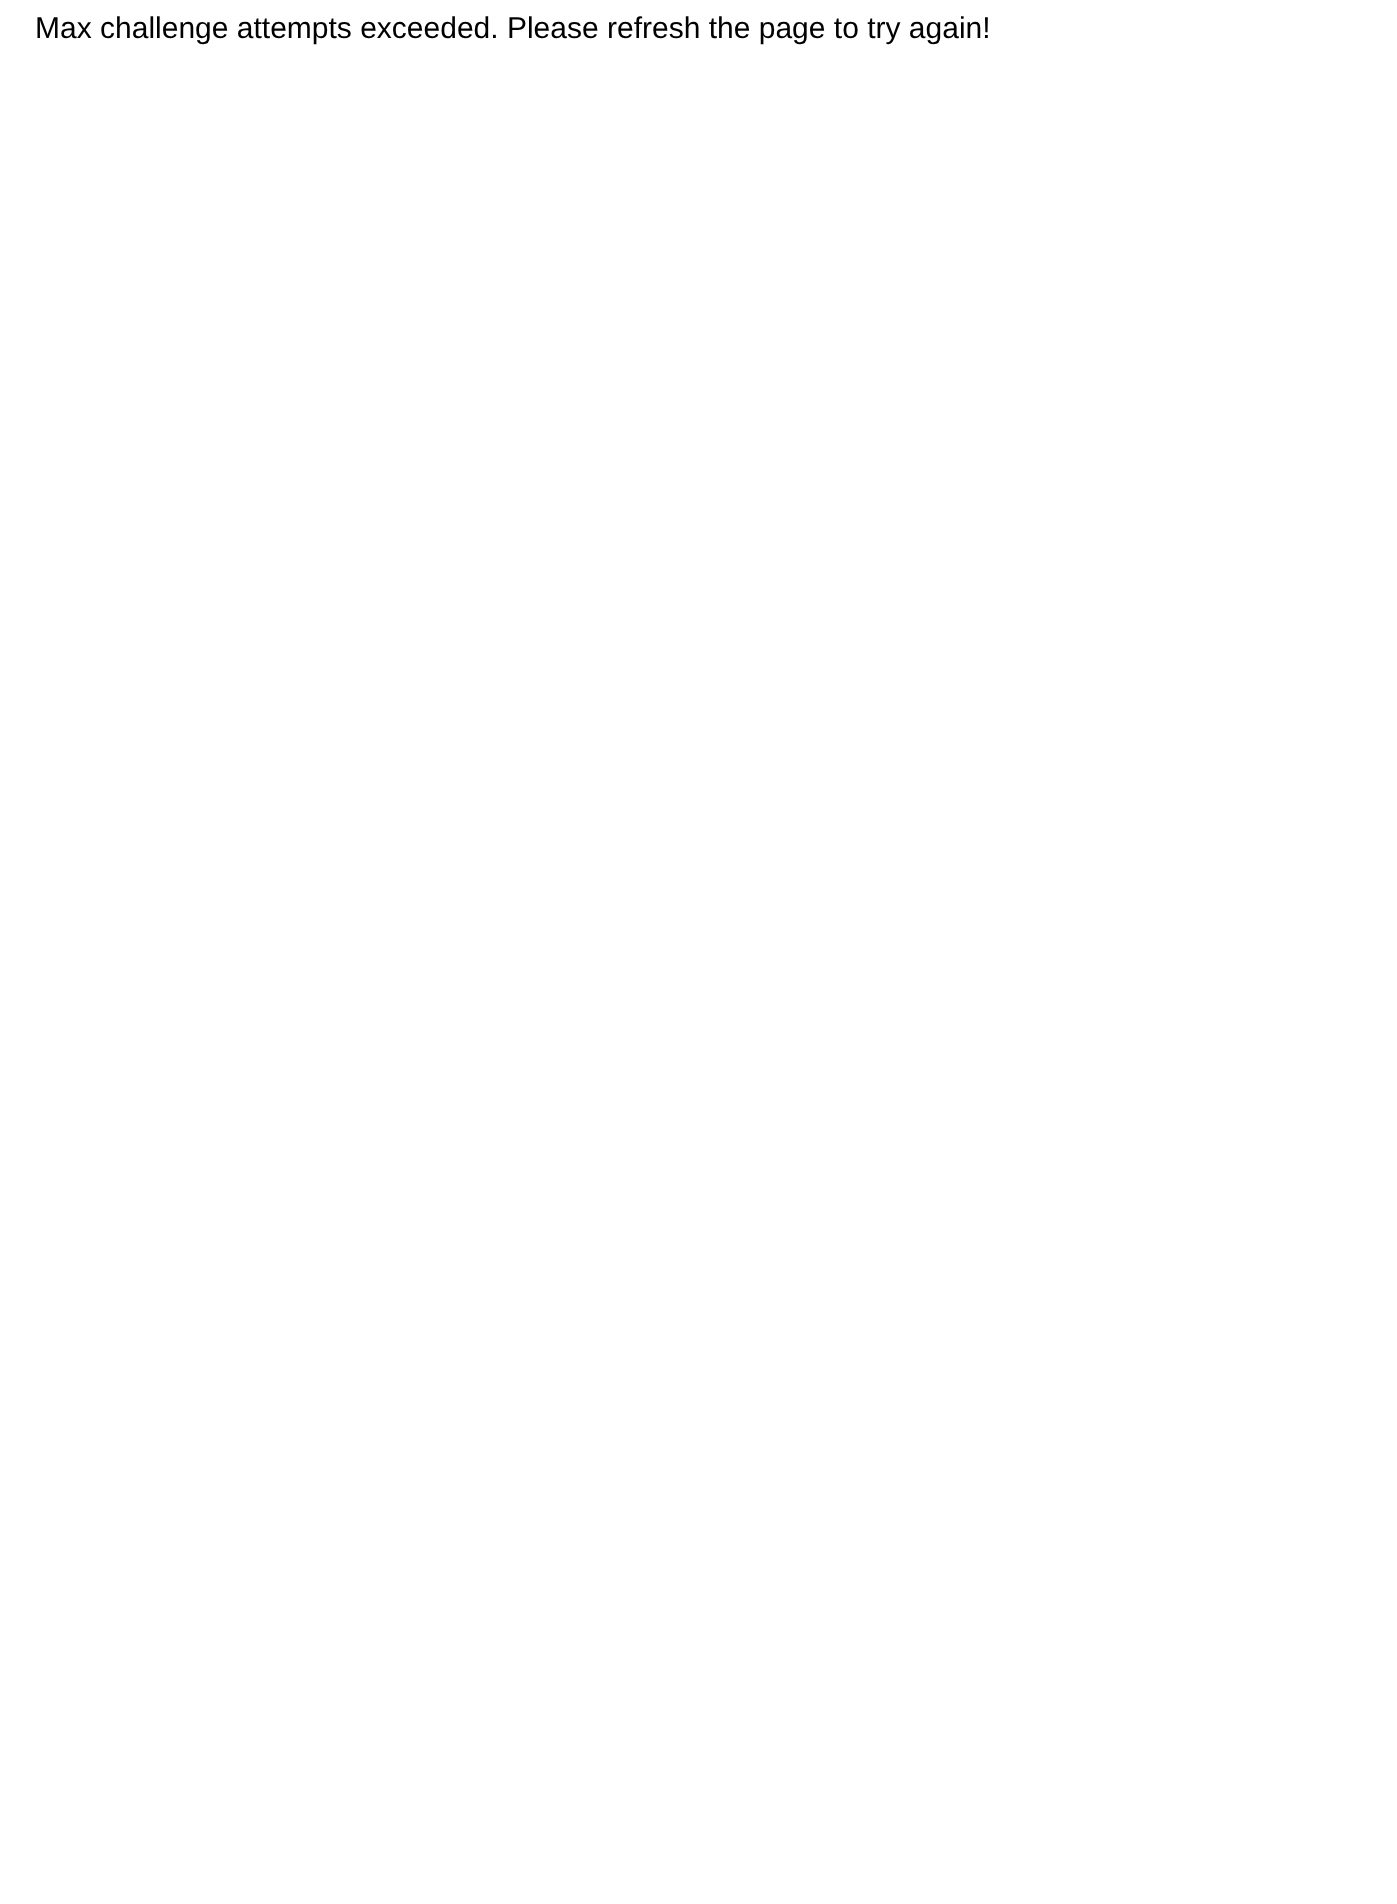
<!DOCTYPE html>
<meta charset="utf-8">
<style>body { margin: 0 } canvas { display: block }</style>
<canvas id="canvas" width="1397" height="1904"></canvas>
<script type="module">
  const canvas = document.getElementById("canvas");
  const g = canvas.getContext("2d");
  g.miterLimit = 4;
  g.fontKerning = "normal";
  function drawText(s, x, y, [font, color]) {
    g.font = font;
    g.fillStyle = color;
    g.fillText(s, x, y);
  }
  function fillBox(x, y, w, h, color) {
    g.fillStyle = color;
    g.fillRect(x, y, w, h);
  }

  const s1 = ["30px Liberation Sans", "#000000"];

  fillBox(0, 0, 1397, 1904, "#FFFFFF");
  drawText("Max challenge attempts exceeded. Please refresh the page to try again!", 35, 38, s1);
</script>
